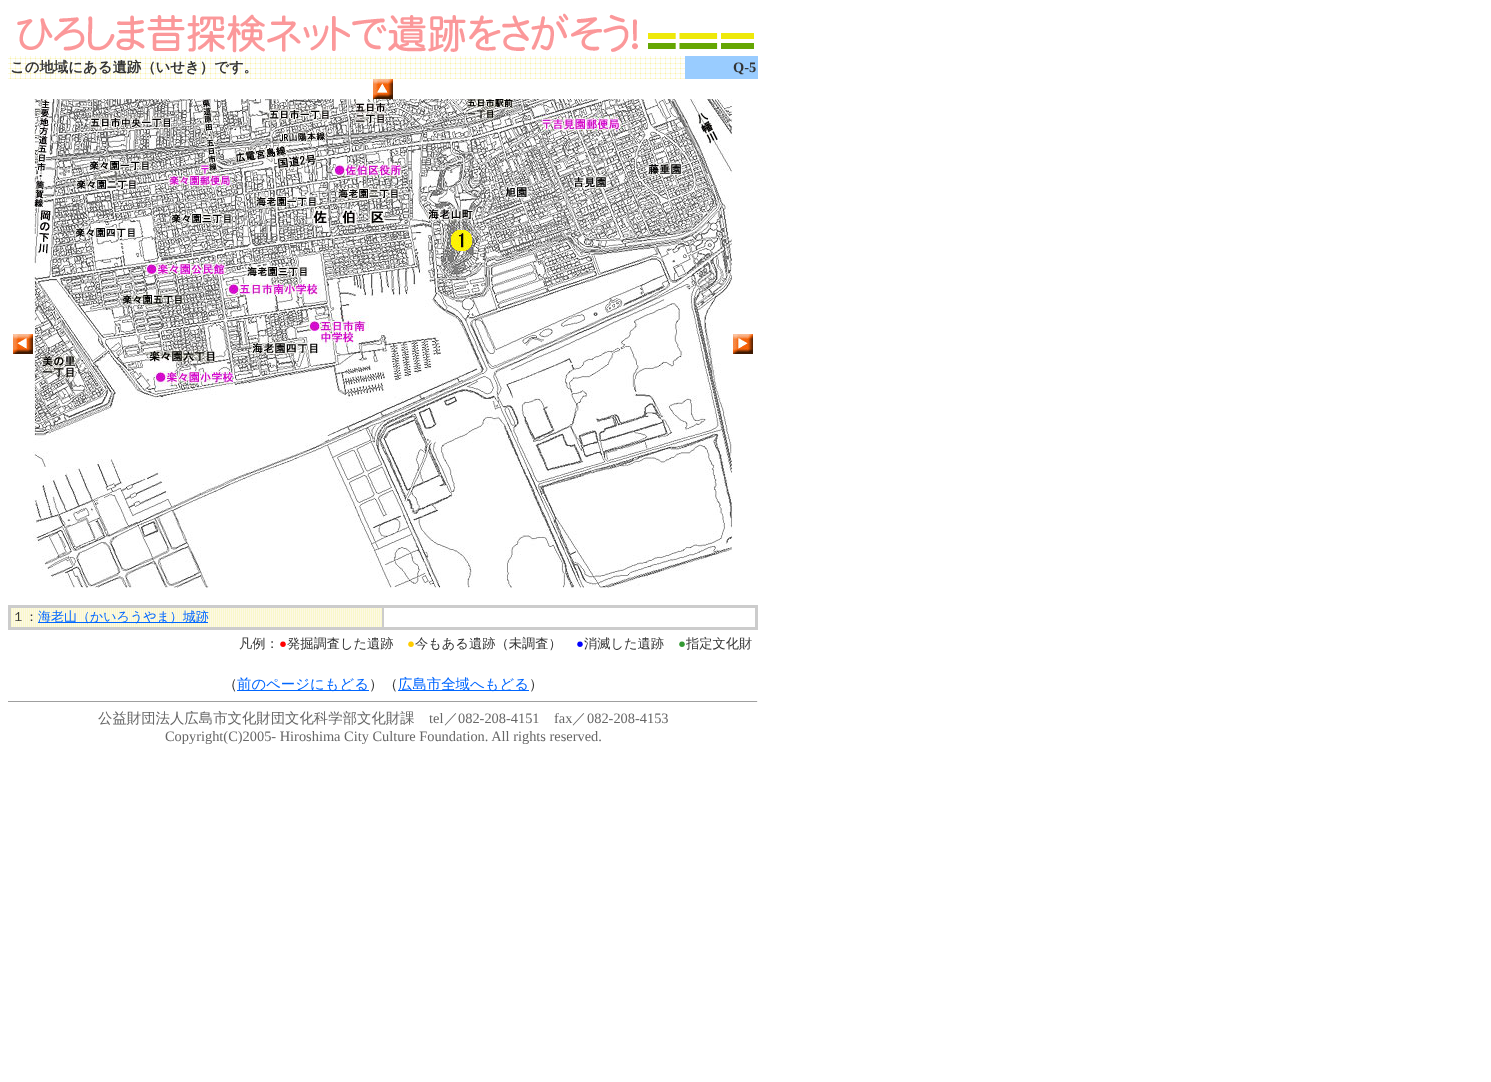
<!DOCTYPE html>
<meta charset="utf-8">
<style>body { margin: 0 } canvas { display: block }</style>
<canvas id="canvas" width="1491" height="1082"></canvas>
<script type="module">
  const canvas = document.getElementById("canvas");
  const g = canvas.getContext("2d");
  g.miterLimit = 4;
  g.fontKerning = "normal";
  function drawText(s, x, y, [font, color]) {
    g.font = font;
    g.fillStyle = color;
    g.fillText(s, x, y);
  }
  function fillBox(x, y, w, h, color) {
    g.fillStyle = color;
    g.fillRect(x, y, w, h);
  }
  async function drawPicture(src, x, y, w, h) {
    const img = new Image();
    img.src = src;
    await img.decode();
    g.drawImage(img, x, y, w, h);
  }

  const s1 = ["bold 14.4px WenQuanYi Zen Hei", "#333333"];
  const s2 = ["bold 14.4px Liberation Serif", "#333333"];
  const s3 = ["500 13px WenQuanYi Zen Hei", "#333333"];
  const s4 = ["500 13px WenQuanYi Zen Hei", "#0066FF"];
  const s5 = ["500 13.25px WenQuanYi Zen Hei", "#333333"];
  const s6 = ["13.25px Liberation Serif", "#FF0000"];
  const s7 = ["13.25px Liberation Serif", "#FFCC00"];
  const s8 = ["13.25px Liberation Serif", "#0000FF"];
  const s9 = ["13.25px Liberation Serif", "#339933"];
  const s10 = ["500 14.4px WenQuanYi Zen Hei", "#333333"];
  const s11 = ["500 14.4px WenQuanYi Zen Hei", "#0066FF"];
  const s12 = ["500 14.4px WenQuanYi Zen Hei", "#666666"];
  const s13 = ["14.4px Liberation Serif", "#666666"];

  fillBox(0, 0, 1491, 1082, "#FFFFFF");
  await drawPicture("pic1.png", 17, 13, 737, 40);
  await drawPicture("pic2.png", 8, 56, 677, 23);
  drawText("この地域にある遺跡（いせき）です。", 10, 72, s1);
  fillBox(685, 56, 73, 23, "#99CCFF");
  drawText("Q-5", 733, 72, s2);
  await drawPicture("pic3.png", 373, 79, 20, 20);
  await drawPicture("pic4.png", 13, 334, 20, 20);
  await drawPicture("pic5.png", 33, 99, 700, 489);
  await drawPicture("pic6.png", 733, 334, 20, 20);
  g.strokeStyle = "#CCCCCC";
  g.lineWidth = 2;
  g.strokeRect(9, 606, 748, 23);
  await drawPicture("pic7.png", 11, 608, 371, 19);
  g.lineWidth = 1;
  g.strokeRect(10.5, 607.5, 372, 20);
  drawText("１：", 12, 621, s3);
  fillBox(38, 622, 170, 1, "#0066FF");
  drawText("海老山（かいろうやま）城跡", 38, 621, s4);
  g.strokeRect(383.5, 607.5, 372, 20);
  drawText("凡例：", 239, 648, s5);
  drawText("●", 279, 648, s6);
  drawText("発掘調査した遺跡", 287, 648, s5);
  drawText("●", 407, 648, s7);
  drawText("今もある遺跡（未調査）", 415, 648, s5);
  drawText("●", 576, 648, s8);
  drawText("消滅した遺跡", 584, 648, s5);
  drawText("●", 678, 648, s9);
  drawText("指定文化財", 686, 648, s5);
  drawText("（", 223, 689, s10);
  fillBox(237, 690, 132, 1, "#0066FF");
  drawText("前のページにもどる", 237, 689, s11);
  drawText("）（", 369, 689, s10);
  fillBox(398, 690, 131, 1, "#0066FF");
  drawText("広島市全域へもどる", 398, 689, s11);
  drawText("）", 529, 689, s10);
  fillBox(8, 701, 750, 1, "#9F9F9F");
  fillBox(757, 701, 1, 1, "#EEEEEE");
  drawText("公益財団法人広島市文化財団文化科学部文化財課", 98, 723, s12);
  drawText("tel", 429, 723, s13);
  drawText("／", 444, 723, s12);
  drawText("082-208-4151", 458, 723, s13);
  drawText("fax", 554, 723, s13);
  drawText("／", 572, 723, s12);
  drawText("082-208-4153", 587, 723, s13);
  drawText("Copyright(C)2005- Hiroshima City Culture Foundation. All rights reserved.", 165, 741, s13);
</script>
